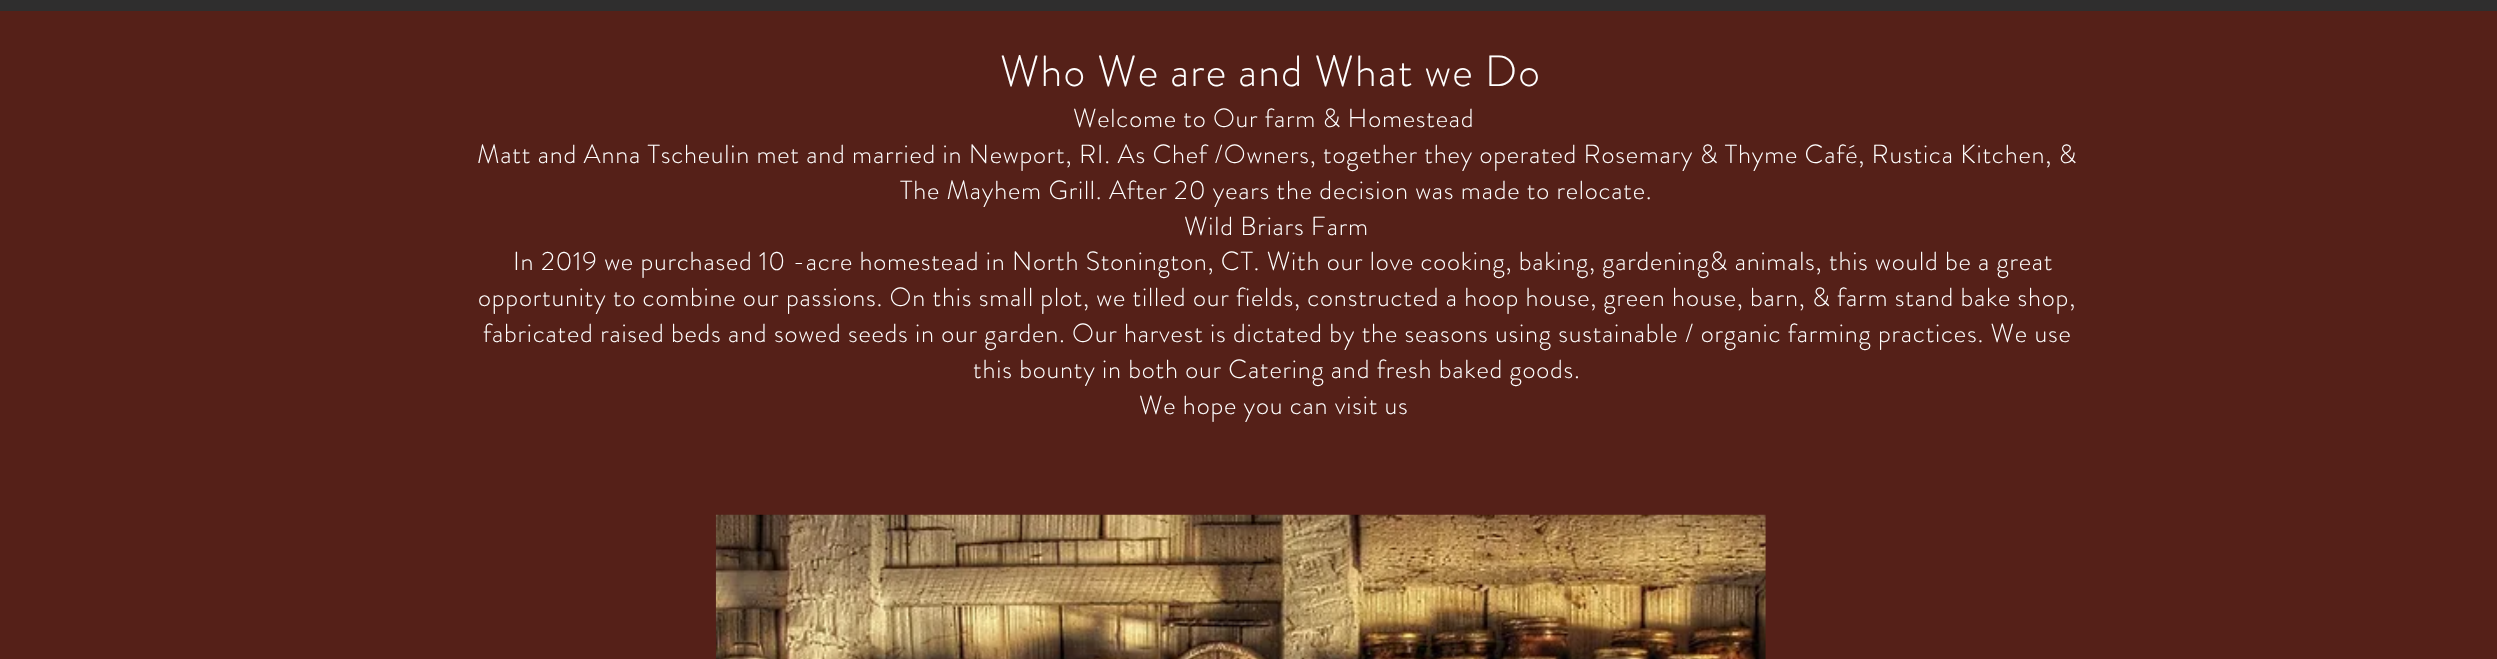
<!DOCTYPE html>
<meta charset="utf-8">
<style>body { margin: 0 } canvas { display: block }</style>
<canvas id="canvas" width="2497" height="659"></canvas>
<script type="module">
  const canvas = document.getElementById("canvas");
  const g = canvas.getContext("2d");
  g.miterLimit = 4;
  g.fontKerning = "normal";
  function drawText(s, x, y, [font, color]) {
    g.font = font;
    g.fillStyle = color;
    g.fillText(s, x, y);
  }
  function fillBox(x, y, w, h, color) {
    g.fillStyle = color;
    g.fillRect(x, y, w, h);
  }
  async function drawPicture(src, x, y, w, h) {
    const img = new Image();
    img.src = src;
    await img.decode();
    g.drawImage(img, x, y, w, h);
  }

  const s1 = ["300 43.75px 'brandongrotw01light'", "#FFFFFF"];
  const s2 = ["300 26.25px 'brandongrotw01light'", "#FFFFFF"];

  fillBox(0, 0, 2497, 659, "#552018");
  fillBox(0, 0, 2497, 11, "#2F2E2E");
  g.letterSpacing = "1.3px";
  drawText("Who We are and What we Do", 1000, 86, s1);
  g.letterSpacing = "0.79px";
  drawText("Welcome to Our farm & Homestead", 1073, 127, s2);
  drawText("Matt and Anna Tscheulin met and married in Newport, RI. As Chef /Owners, together they operated Rosemary & Thyme Café, Rustica Kitchen, &", 477, 163, s2);
  drawText("The Mayhem Grill. After 20 years the decision was made to relocate.", 900, 199, s2);
  drawText("Wild Briars Farm", 1184, 235, s2);
  drawText("In 2019 we purchased 10 -acre homestead in North Stonington, CT. With our love cooking, baking, gardening& animals, this would be a great", 513, 270, s2);
  drawText("opportunity to combine our passions. On this small plot, we tilled our fields, constructed a hoop house, green house, barn, & farm stand bake shop,", 478, 306, s2);
  drawText("fabricated raised beds and sowed seeds in our garden. Our harvest is dictated by the seasons using sustainable / organic farming practices. We use", 483, 342, s2);
  drawText("this bounty in both our Catering and fresh baked goods.", 973, 378, s2);
  drawText("We hope you can visit us", 1139, 414, s2);
  await drawPicture("pic1.png", 715, 514, 1051, 145);
</script>
